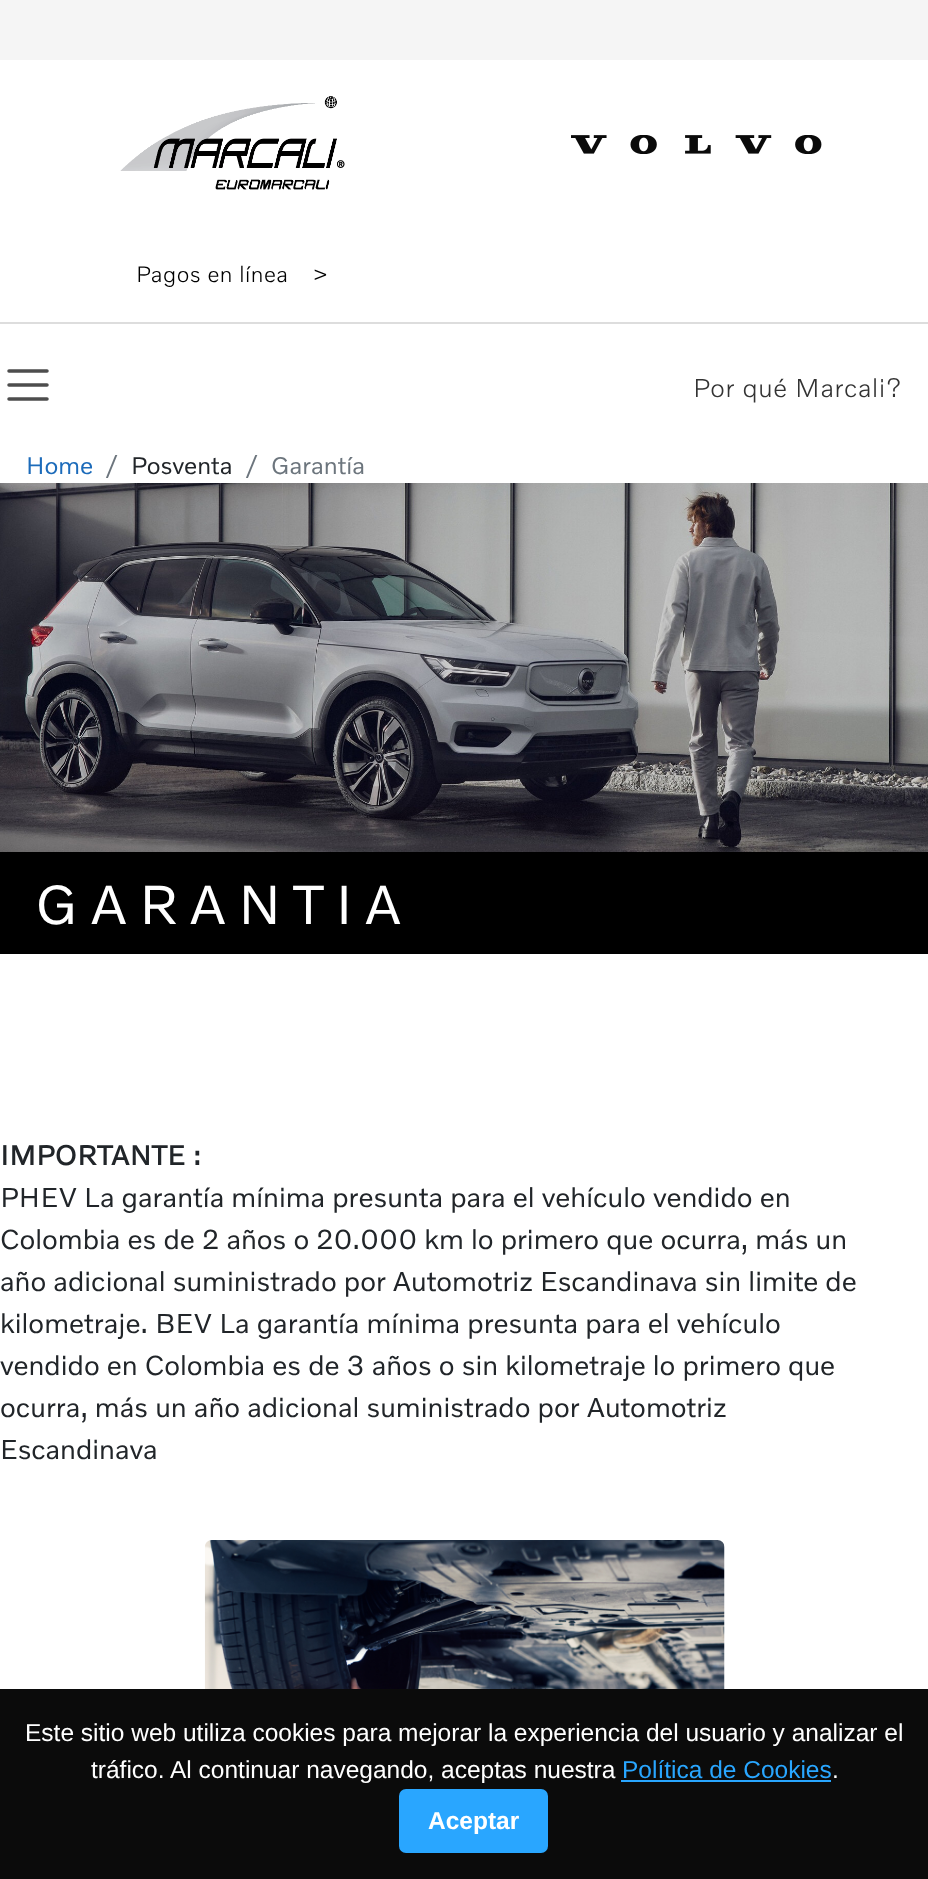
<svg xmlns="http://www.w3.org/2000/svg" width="928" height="1879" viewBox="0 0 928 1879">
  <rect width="100%" height="100%" fill="#ffffff"/>
  <rect x="0" y="0" width="928" height="60" fill="#f5f5f5"/>
  <rect x="0" y="322" width="928" height="2" fill="#dddddd"/>
  <image x="120" y="96" width="225" height="94" href="img1.png"/>
  <image x="571" y="135" width="251" height="19" href="img2.png"/>
  <text x="136" y="282" font-family="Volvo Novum" font-size="22.75" font-weight="300" letter-spacing="0.5" fill="#000000">Pagos en línea</text>
  <text x="313" y="282" font-family="Volvo Novum" font-size="22.75" font-weight="300" letter-spacing="0.5" fill="#000000">&gt;</text>
  <path d="M9 371H47M9 385H47M9 399H47" fill="none" stroke="#4d4d4d" stroke-width="3.5" stroke-linecap="round"/>
  <text x="693" y="397" font-family="Volvo Novum" font-size="26.25" font-weight="300" letter-spacing="0.7" fill="#333333">Por qué Marcali?</text>
  <text x="26" y="474" font-family="Volvo Novum" font-size="24.5" fill="#1c6bba">Home</text>
  <text x="107" y="474" font-family="Volvo Novum" font-size="24.5" fill="#6c757d">/</text>
  <text x="131" y="474" font-family="Volvo Novum" font-size="24.5" fill="#212529">Posventa</text>
  <text x="247" y="474" font-family="Volvo Novum" font-size="24.5" fill="#6c757d">/</text>
  <text x="271" y="474" font-family="Volvo Novum" font-size="24.5" fill="#6c757d">Garantía</text>
  <image x="0" y="483" width="928" height="369" href="img3.png"/>
  <rect x="0" y="852" width="928" height="102" fill="#000000"/>
  <text x="35" y="924" font-family="Volvo Novum" font-size="56" letter-spacing="11.25" fill="#ffffff">GARANTIA</text>
  <text x="0" y="1165" font-family="Volvo Novum" font-size="28" font-weight="bold" fill="#212529">IMPORTANTE :</text>
  <text x="0" y="1207" font-family="Volvo Novum" font-size="28" fill="#212529">PHEV La garantía mínima presunta para el vehículo vendido en</text>
  <text x="0" y="1249" font-family="Volvo Novum" font-size="28" fill="#212529">Colombia es de 2 años o 20.000 km lo primero que ocurra, más un</text>
  <text x="0" y="1291" font-family="Volvo Novum" font-size="28" fill="#212529">año adicional suministrado por Automotriz Escandinava sin limite de</text>
  <text x="0" y="1333" font-family="Volvo Novum" font-size="28" fill="#212529">kilometraje. BEV La garantía mínima presunta para el vehículo</text>
  <text x="0" y="1375" font-family="Volvo Novum" font-size="28" fill="#212529">vendido en Colombia es de 3 años o sin kilometraje lo primero que</text>
  <text x="0" y="1417" font-family="Volvo Novum" font-size="28" fill="#212529">ocurra, más un año adicional suministrado por Automotriz</text>
  <text x="0" y="1459" font-family="Volvo Novum" font-size="28" fill="#212529">Escandinava</text>
  <image x="204" y="1540" width="521" height="149" href="img4.png"/>
  <rect x="0" y="1689" width="928" height="190" fill="#0b0b0b"/>
  <text x="25" y="1741" font-family="Liberation Sans" font-size="24.5" fill="#ffffff">Este sitio web utiliza cookies para mejorar la experiencia del usuario y analizar el</text>
  <text x="91" y="1778" font-family="Liberation Sans" font-size="24.5" fill="#ffffff">tráfico.</text>
  <text x="170" y="1778" font-family="Liberation Sans" font-size="24.5" fill="#ffffff">Al continuar navegando, aceptas nuestra</text>
  <text x="622" y="1778" font-family="Liberation Sans" font-size="24.5" fill="#29a6ff">Política de Cookies</text>
  <rect x="621" y="1780" width="210" height="2" fill="#29a6ff"/>
  <text x="832" y="1778" font-family="Liberation Sans" font-size="24.5" fill="#ffffff">.</text>
  <rect x="399" y="1789" width="149" height="64" rx="7" fill="#29a6ff"/>
  <text x="428" y="1829" font-family="Liberation Sans" font-size="24.5" font-weight="bold" fill="#ffffff">Aceptar</text>
</svg>
